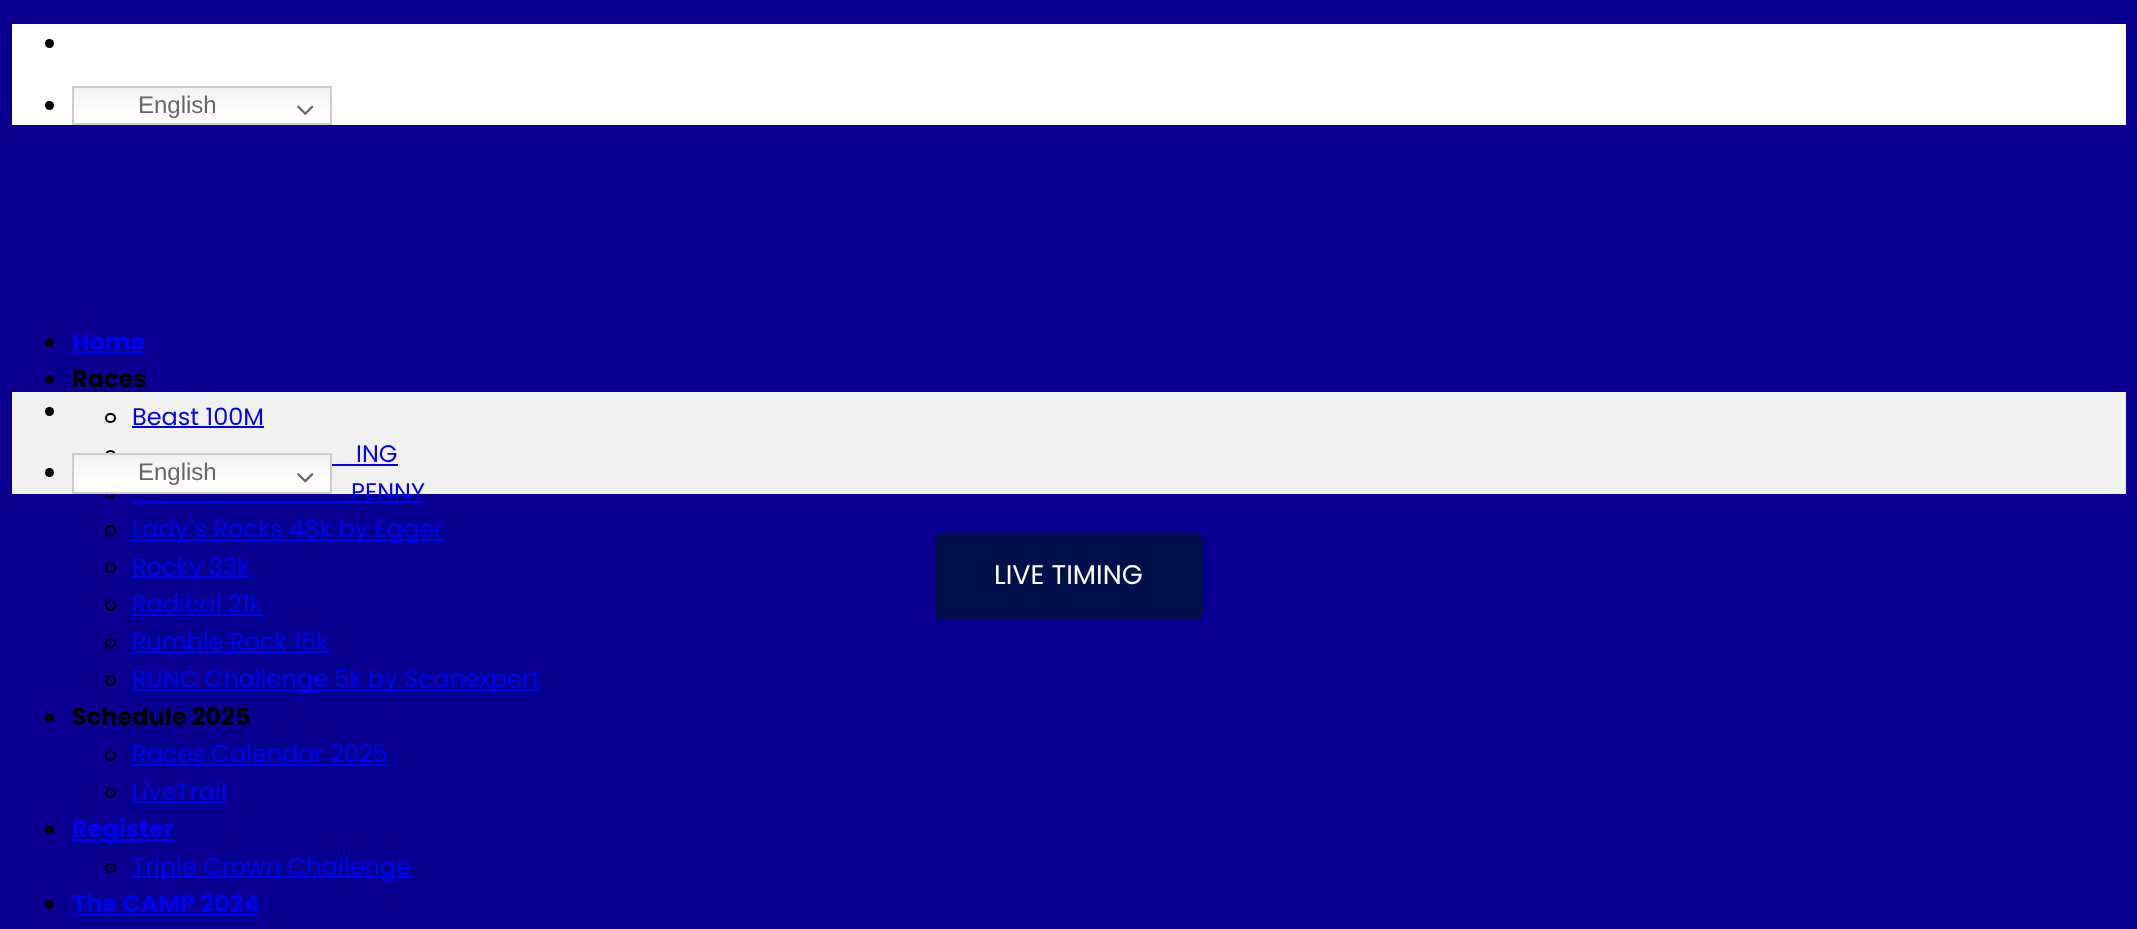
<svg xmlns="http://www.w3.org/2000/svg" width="2137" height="929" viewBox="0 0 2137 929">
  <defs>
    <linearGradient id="g1" gradientUnits="userSpaceOnUse" x1="202" y1="85" x2="202" y2="125"><stop offset="0" stop-color="#efefef"/><stop offset="0.7" stop-color="#ffffff"/></linearGradient>
    <linearGradient id="g2" gradientUnits="userSpaceOnUse" x1="202" y1="453" x2="202" y2="494"><stop offset="0" stop-color="#efefef"/><stop offset="0.7" stop-color="#ffffff"/></linearGradient>
  </defs>
  <rect width="100%" height="100%" fill="#090091"/>
  <rect x="12" y="24" width="2114" height="101" fill="#ffffff"/>
  <circle cx="49.5" cy="43.5" r="4.5" fill="#020202"/>
  <circle cx="49.5" cy="105.5" r="4.5" fill="#020202"/>
  <rect x="74" y="88" width="256" height="21" fill="url(#g1)"/>
  <rect x="73" y="87" width="258" height="37" fill="none" stroke="#cccccc" stroke-width="2"/>
  <text x="138" y="113" font-family="Liberation Sans" font-size="24" fill="#666666">English</text>
  <image x="297" y="105" width="17" height="10" href="img1.png"/>
  <circle cx="49.5" cy="342.5" r="4.5" fill="#020202"/>
  <text x="72" y="350" font-family="Poppins" font-size="24" font-weight="bold" fill="#0000ee">Home</text>
  <rect x="72" y="351" width="74" height="2" fill="#0000ee"/>
  <circle cx="49.5" cy="379.5" r="4.5" fill="#020202"/>
  <text x="72" y="387" font-family="Poppins" font-size="24" font-weight="bold" fill="#020202">Races</text>
  <rect x="12" y="392" width="2114" height="102" fill="#f1f1f1"/>
  <rect x="106" y="414" width="9" height="8" rx="4" fill="none" stroke="#020202" stroke-width="2"/>
  <text x="132" y="425" font-family="Poppins" font-size="24" fill="#0000ee">Beast 100M</text>
  <rect x="132" y="426" width="132" height="2" fill="#0000ee"/>
  <circle cx="110.5" cy="455.5" r="4.5" fill="none" stroke="#020202" stroke-width="2"/>
  <text x="356" y="462" font-family="Poppins" font-size="24" fill="#0000ee">ING</text>
  <rect x="332" y="464" width="66" height="2" fill="#0000ee"/>
  <rect x="106" y="489" width="9" height="8" rx="4" fill="none" stroke="#020202" stroke-width="2"/>
  <text x="351" y="500" font-family="Poppins" font-size="24" fill="#0000ee">PENNY</text>
  <rect x="132" y="501" width="293" height="2" fill="#0000ee"/>
  <circle cx="110.5" cy="530.5" r="4.5" fill="none" stroke="#020202" stroke-width="2"/>
  <rect x="132" y="539" width="311" height="2" fill="#0000ee"/>
  <text x="132" y="537" font-family="Poppins" font-size="24" fill="#0000ee">Lady`s Rocks 48k by Egger</text>
  <rect x="106" y="564" width="9" height="8" rx="4" fill="none" stroke="#020202" stroke-width="2"/>
  <rect x="132" y="576" width="117" height="2" fill="#0000ee"/>
  <text x="132" y="575" font-family="Poppins" font-size="24" fill="#0000ee">Rocky 33k</text>
  <circle cx="110.5" cy="605.5" r="4.5" fill="none" stroke="#020202" stroke-width="2"/>
  <text x="132" y="612" font-family="Poppins" font-size="24" fill="#0000ee">Radical 21k</text>
  <rect x="132" y="614" width="131" height="2" fill="#0000ee"/>
  <rect x="106" y="639" width="9" height="8" rx="4" fill="none" stroke="#020202" stroke-width="2"/>
  <text x="132" y="650" font-family="Poppins" font-size="24" fill="#0000ee">Rumble Rock 15k</text>
  <rect x="132" y="651" width="197" height="2" fill="#0000ee"/>
  <circle cx="110.5" cy="680.5" r="4.5" fill="none" stroke="#020202" stroke-width="2"/>
  <rect x="132" y="689" width="408" height="2" fill="#0000ee"/>
  <text x="132" y="687" font-family="Poppins" font-size="24" fill="#0000ee">RUNC Challenge 5k by Scanexpert</text>
  <circle cx="49.5" cy="717.5" r="4.5" fill="#020202"/>
  <text x="72" y="725" font-family="Poppins" font-size="24" font-weight="bold" fill="#020202">Schedule 2025</text>
  <circle cx="110.5" cy="755.5" r="4.5" fill="none" stroke="#020202" stroke-width="2"/>
  <text x="132" y="762" font-family="Poppins" font-size="24" fill="#0000ee">Races Calendar 2025</text>
  <rect x="132" y="764" width="255" height="2" fill="#0000ee"/>
  <rect x="106" y="789" width="9" height="8" rx="4" fill="none" stroke="#020202" stroke-width="2"/>
  <text x="132" y="800" font-family="Poppins" font-size="24" fill="#0000ee">LiveTrail</text>
  <rect x="132" y="801" width="95" height="2" fill="#0000ee"/>
  <circle cx="49.5" cy="829.5" r="4.5" fill="#020202"/>
  <rect x="72" y="839" width="102" height="2" fill="#0000ee"/>
  <text x="72" y="837" font-family="Poppins" font-size="24" font-weight="bold" fill="#0000ee">Register</text>
  <rect x="106" y="864" width="9" height="8" rx="4" fill="none" stroke="#020202" stroke-width="2"/>
  <rect x="132" y="876" width="279" height="2" fill="#0000ee"/>
  <text x="132" y="875" font-family="Poppins" font-size="24" fill="#0000ee">Triple Crown Challenge</text>
  <circle cx="49.5" cy="904.5" r="4.5" fill="#020202"/>
  <text x="72" y="912" font-family="Poppins" font-size="24" font-weight="bold" fill="#0000ee">The CAMP 2024</text>
  <rect x="72" y="914" width="188" height="2" fill="#0000ee"/>
  <circle cx="49.5" cy="411.5" r="4.5" fill="#020202"/>
  <circle cx="49.5" cy="472.5" r="4.5" fill="#020202"/>
  <rect x="74" y="455" width="256" height="37" fill="url(#g2)"/>
  <rect x="73" y="454" width="258" height="39" fill="none" stroke="#cccccc" stroke-width="2"/>
  <text x="138" y="480" font-family="Liberation Sans" font-size="24" fill="#666666">English</text>
  <image x="297" y="473" width="17" height="10" href="img2.png"/>
  <rect x="935" y="533" width="268" height="87" rx="8" fill="#02114b"/>
  <text x="994" y="584" font-family="Poppins" font-size="27" fill="#ffffff">LIVE TIMING</text>
</svg>
